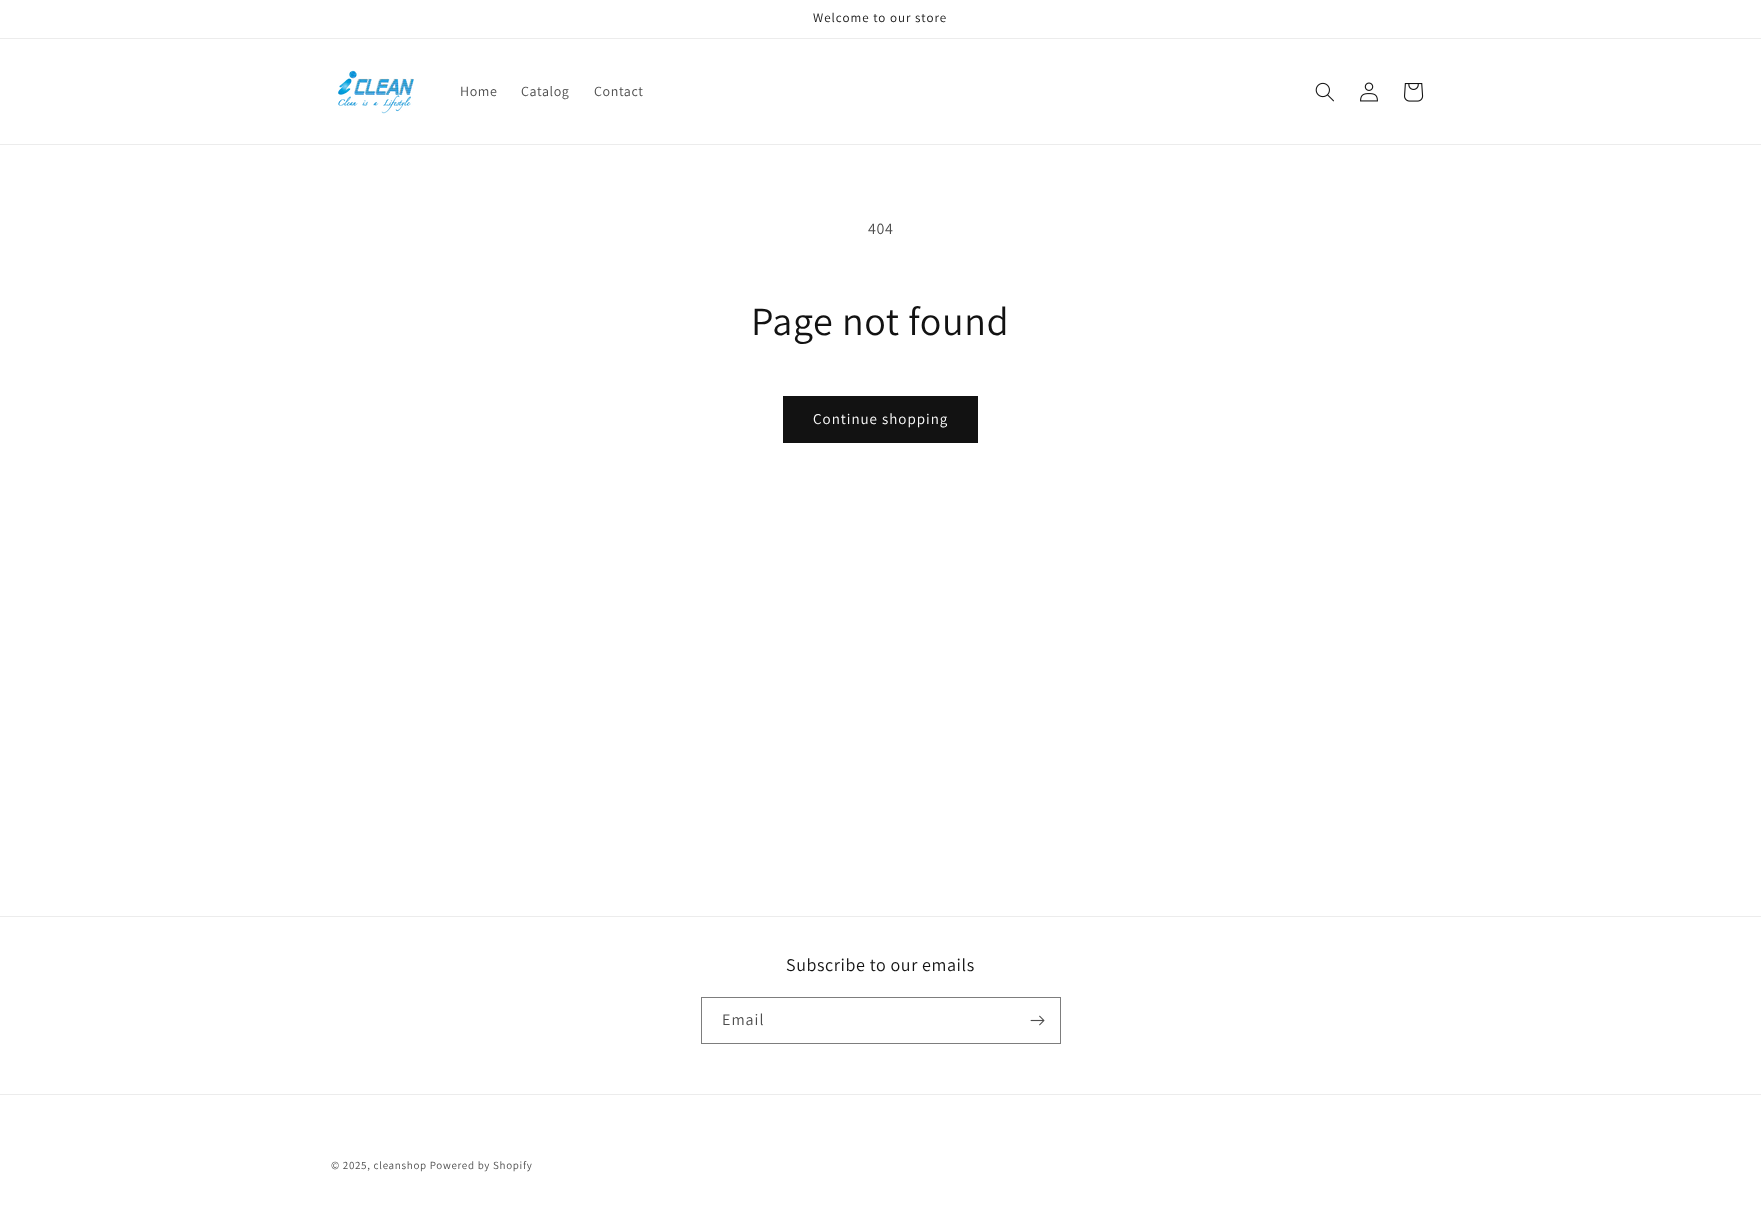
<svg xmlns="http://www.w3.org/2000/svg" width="1761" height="1211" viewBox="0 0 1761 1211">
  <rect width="100%" height="100%" fill="#ffffff"/>
  <rect x="0" y="38" width="1761" height="1" fill="#ececec"/>
  <text x="813" y="22" font-family="Assistant" font-size="13" letter-spacing="1" fill="#121212">Welcome to our store</text>
  <rect x="0" y="144" width="1761" height="1" fill="#ececec"/>
  <image x="338" y="70" width="76" height="44" href="img1.png"/>
  <text x="460" y="96" font-family="Assistant" font-size="14" letter-spacing="0.6" fill="#4d4d4d">Home</text>
  <text x="521" y="96" font-family="Assistant" font-size="14" letter-spacing="0.6" fill="#4d4d4d">Catalog</text>
  <text x="594" y="96" font-family="Assistant" font-size="14" letter-spacing="0.6" fill="#4d4d4d">Contact</text>
  <image x="1315" y="82" width="19" height="20" href="img2.png"/>
  <image x="1360" y="82" width="18" height="20" href="img3.png"/>
  <image x="1404" y="83" width="20" height="19" href="img4.png"/>
  <text x="868" y="234" font-family="Assistant" font-size="16" letter-spacing="0.6" fill="#4d4d4d">404</text>
  <text x="751" y="335" font-family="Assistant" font-size="40" letter-spacing="0.6" fill="#121212">Page not found</text>
  <rect x="783" y="396" width="195" height="47" fill="#121212"/>
  <text x="813" y="424" font-family="Assistant" font-size="15" letter-spacing="1" fill="#ffffff">Continue shopping</text>
  <rect x="0" y="916" width="1761" height="1" fill="#ececec"/>
  <text x="786" y="971" font-family="Assistant" font-size="18" letter-spacing="0.6" fill="#121212">Subscribe to our emails</text>
  <rect x="701.5" y="997.5" width="359" height="46" fill="none" stroke="#7d7d7d"/>
  <text x="722" y="1025" font-family="Assistant" font-size="16" letter-spacing="1" fill="#4d4d4d">Email</text>
  <image x="1030" y="1015" width="15" height="11" href="img5.png"/>
  <rect x="0" y="1094" width="1761" height="1" fill="#ececec"/>
  <text x="331" y="1169" font-family="Assistant" font-size="11" letter-spacing="0.7" fill="#4d4d4d">© 2025, cleanshop Powered by Shopify</text>
</svg>
